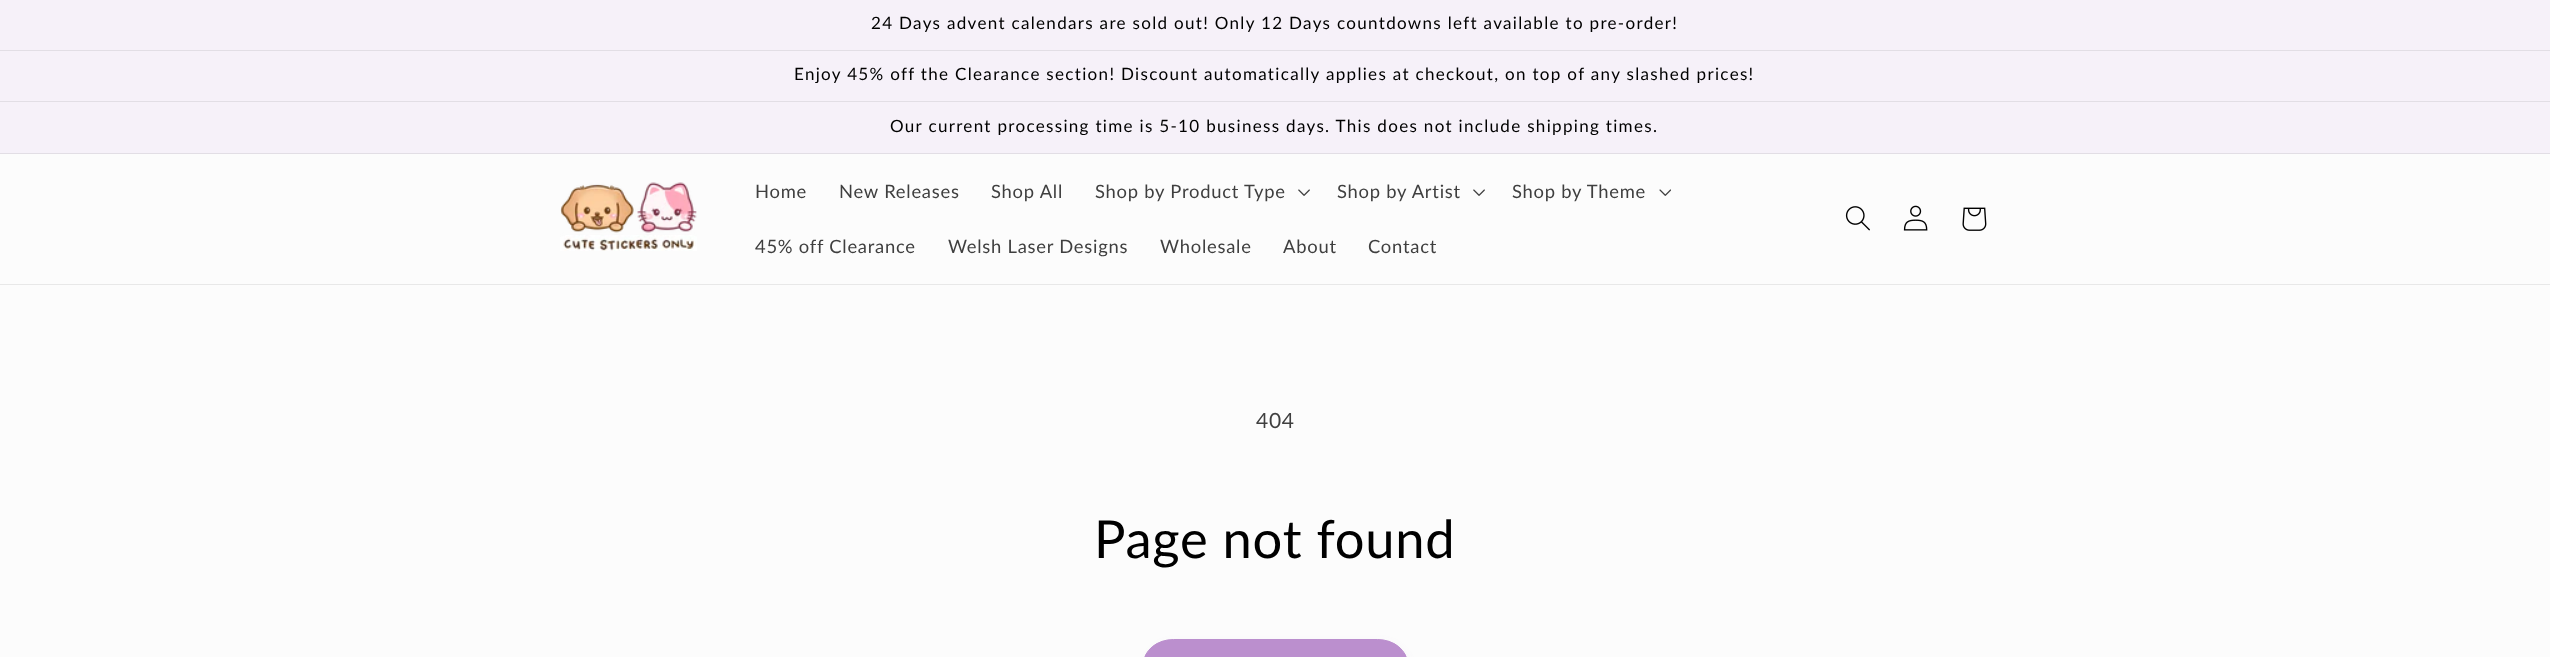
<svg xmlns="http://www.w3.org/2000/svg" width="2550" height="657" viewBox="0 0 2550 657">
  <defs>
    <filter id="blur1" x="-50%" y="-200%" width="200%" height="500%"><feGaussianBlur stdDeviation="3"/></filter>
  </defs>
  <rect width="100%" height="100%" fill="#fcfcfc"/>
  <rect x="0" y="0" width="2550" height="50" fill="#f6f1f9"/>
  <rect x="0" y="50" width="2550" height="1" fill="#e2dee5"/>
  <text x="871" y="29" font-family="Lato" font-size="17.05" letter-spacing="1.31" fill="#000000">24 Days advent calendars are sold out! Only 12 Days countdowns left available to pre-order!</text>
  <rect x="0" y="51" width="2550" height="102" fill="#f6f1f9"/>
  <rect x="0" y="101" width="2550" height="1" fill="#e2dee5"/>
  <text x="794" y="80" font-family="Lato" font-size="17.05" letter-spacing="1.31" fill="#000000">Enjoy 45% off the Clearance section! Discount automatically applies at checkout, on top of any slashed prices!</text>
  <rect x="0" y="153" width="2550" height="1" fill="#e2dee5"/>
  <text x="890" y="132" font-family="Lato" font-size="17.05" letter-spacing="1.31" fill="#000000">Our current processing time is 5-10 business days. This does not include shipping times.</text>
  <rect x="0" y="284" width="2550" height="1" fill="#e8e8e8"/>
  <image x="560" y="182" width="137" height="69" href="img1.png"/>
  <text x="755" y="198" font-family="Lato" font-size="18.4" letter-spacing="0.75" fill="#3f3f3f">Home</text>
  <text x="839" y="198" font-family="Lato" font-size="18.4" letter-spacing="0.75" fill="#3f3f3f">New Releases</text>
  <text x="991" y="198" font-family="Lato" font-size="18.4" letter-spacing="0.75" fill="#3f3f3f">Shop All</text>
  <text x="1095" y="198" font-family="Lato" font-size="18.4" letter-spacing="0.75" fill="#3f3f3f">Shop by Product Type</text>
  <image x="1298" y="189" width="12" height="7" href="img2.png"/>
  <text x="1337" y="198" font-family="Lato" font-size="18.4" letter-spacing="0.75" fill="#3f3f3f">Shop by Artist</text>
  <image x="1473" y="189" width="12" height="7" href="img2.png"/>
  <text x="1512" y="198" font-family="Lato" font-size="18.4" letter-spacing="0.75" fill="#3f3f3f">Shop by Theme</text>
  <image x="1659" y="189" width="12" height="7" href="img3.png"/>
  <text x="755" y="253" font-family="Lato" font-size="18.4" letter-spacing="0.75" fill="#3f3f3f">45% off Clearance</text>
  <text x="948" y="253" font-family="Lato" font-size="18.4" letter-spacing="0.75" fill="#3f3f3f">Welsh Laser Designs</text>
  <text x="1160" y="253" font-family="Lato" font-size="18.4" letter-spacing="0.75" fill="#3f3f3f">Wholesale</text>
  <text x="1283" y="253" font-family="Lato" font-size="18.4" letter-spacing="0.75" fill="#3f3f3f">About</text>
  <text x="1368" y="253" font-family="Lato" font-size="18.4" letter-spacing="0.75" fill="#3f3f3f">Contact</text>
  <image x="1845" y="206" width="25" height="25" href="img4.png"/>
  <image x="1903" y="205" width="25" height="26" href="img5.png"/>
  <image x="1962" y="207" width="25" height="24" href="img6.png"/>
  <text x="1256" y="428" font-family="Lato" font-size="21" letter-spacing="0.75" fill="#3f3f3f">404</text>
  <text x="1094" y="558" font-family="Lato" font-size="52.5" letter-spacing="0.75" fill="#000000">Page not found</text>
  <rect x="1145" y="641" width="265" height="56" rx="31" fill="#bb8fce" fill-opacity="0.1" filter="url(#blur1)"/>
  <rect x="1143.5" y="639.5" width="264" height="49" rx="30" fill="#bb8fce" stroke="#bb8fce"/>
</svg>
